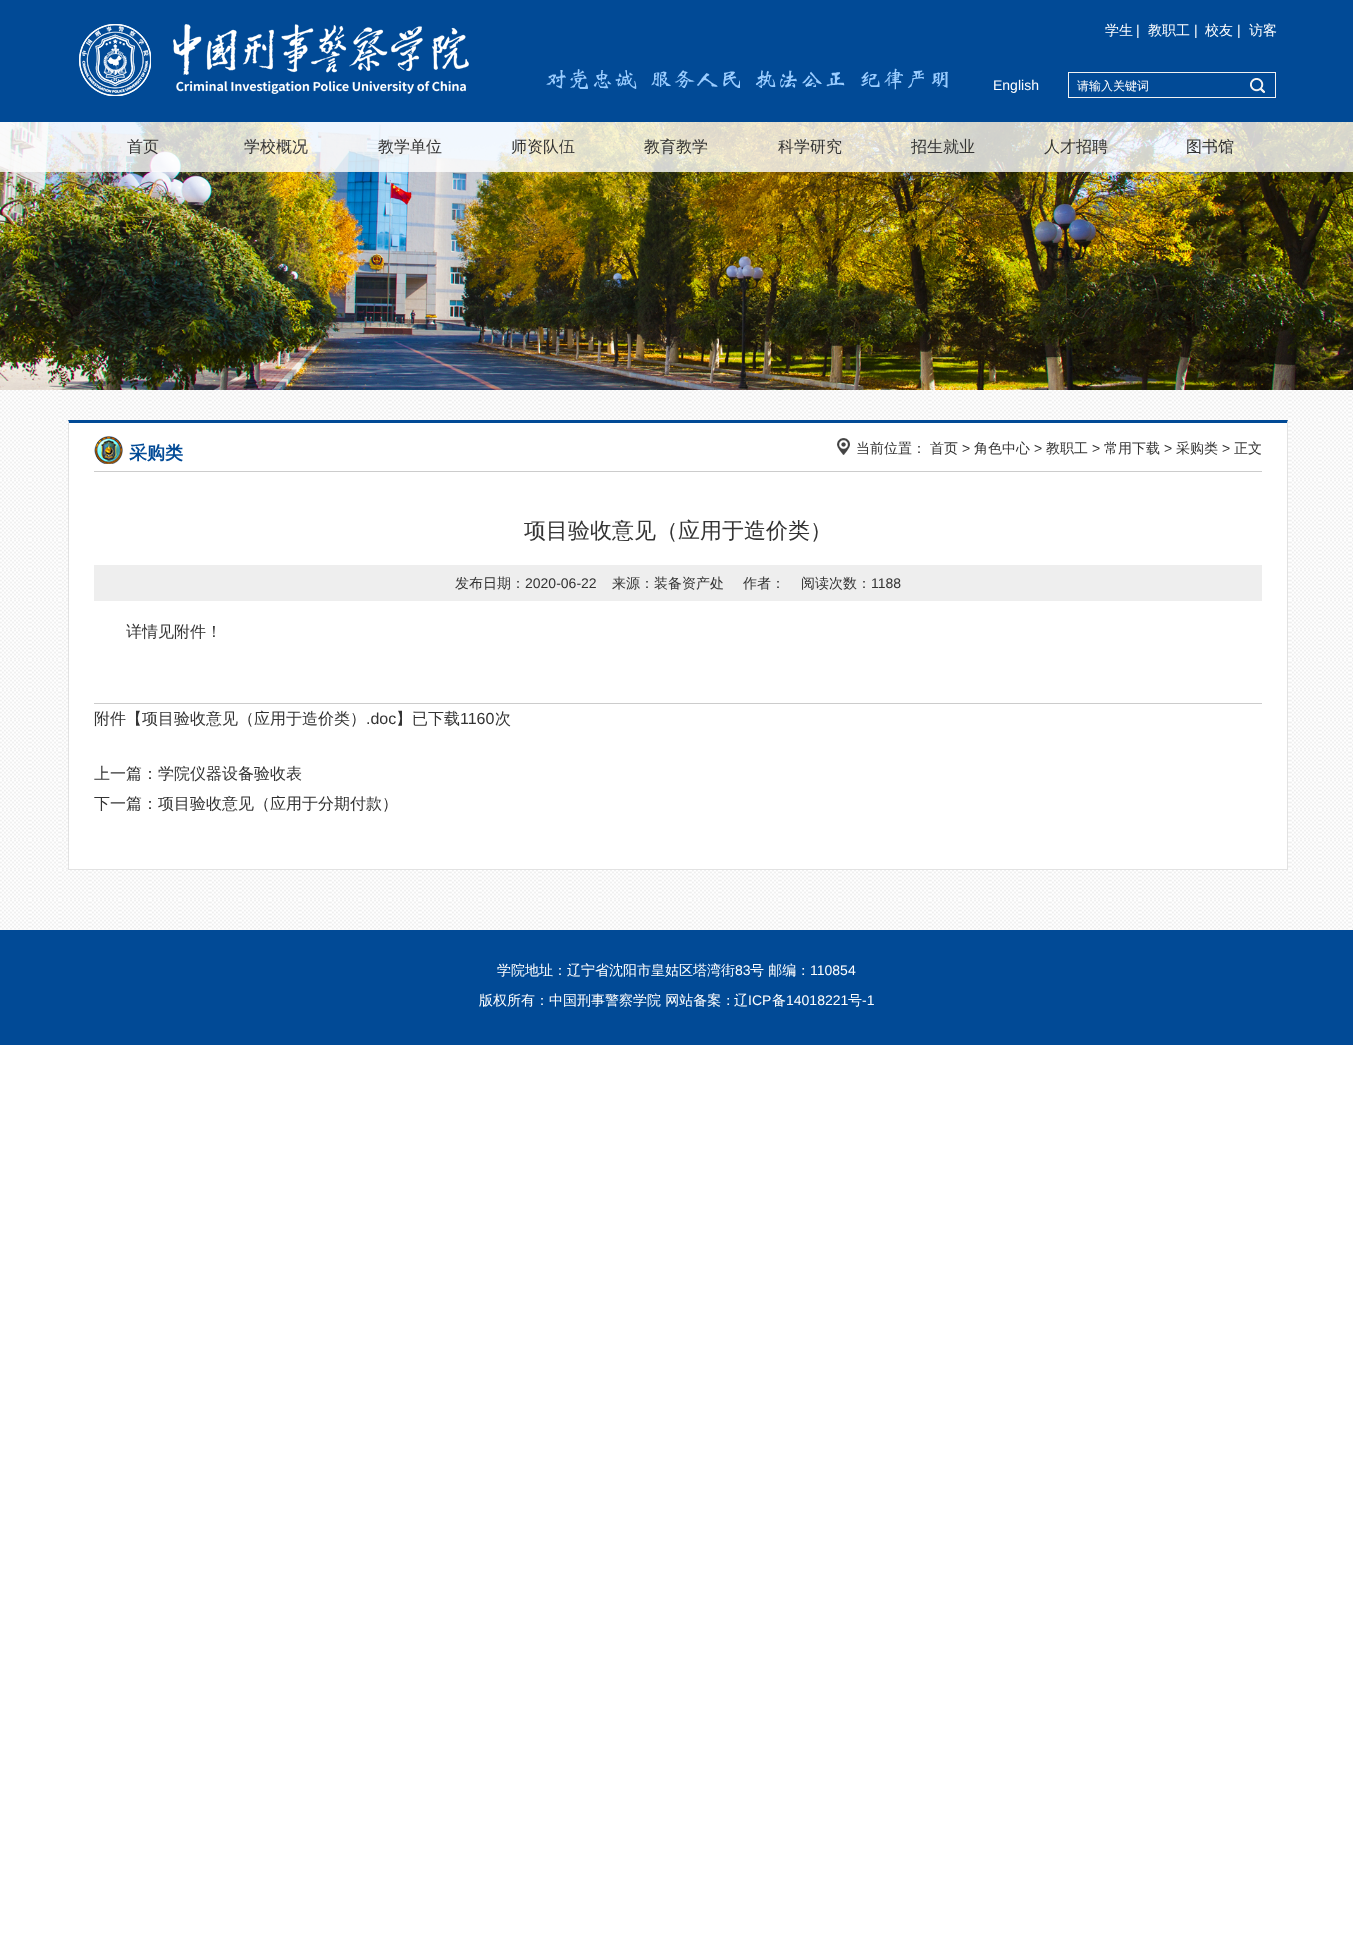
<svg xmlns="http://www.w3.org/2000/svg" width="1353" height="1947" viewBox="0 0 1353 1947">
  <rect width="100%" height="100%" fill="#ffffff"/>
  <rect x="0" y="0" width="1353" height="122" fill="#014a96"/>
  <image x="79" y="24" width="390" height="72" href="img1.png"/>
  <image x="546" y="68" width="402" height="22" href="img2.png"/>
  <text x="1105" y="35" font-family="WenQuanYi Zen Hei" font-size="14" font-weight="500" fill="#ffffff">学生</text>
  <text x="1136" y="35" font-family="Liberation Sans" font-size="14" fill="#ffffff">|</text>
  <text x="1148" y="35" font-family="WenQuanYi Zen Hei" font-size="14" font-weight="500" fill="#ffffff">教职工</text>
  <text x="1194" y="35" font-family="Liberation Sans" font-size="14" fill="#ffffff">|</text>
  <text x="1205" y="35" font-family="WenQuanYi Zen Hei" font-size="14" font-weight="500" fill="#ffffff">校友</text>
  <text x="1237" y="35" font-family="Liberation Sans" font-size="14" fill="#ffffff">|</text>
  <text x="1249" y="35" font-family="WenQuanYi Zen Hei" font-size="14" font-weight="500" fill="#ffffff">访客</text>
  <text x="993" y="90" font-family="Liberation Sans" font-size="14" fill="#ffffff">English</text>
  <image x="1068" y="72" width="208" height="26" href="img3.png"/>
  <text x="1077" y="90" font-family="WenQuanYi Zen Hei" font-size="12" font-weight="500" fill="#ffffff">请输入关键词</text>
  <image x="0" y="122" width="1353" height="268" href="img4.png"/>
  <rect x="0" y="122" width="1353" height="50" fill="#ffffff" fill-opacity="0.8"/>
  <text x="127" y="152" font-family="WenQuanYi Zen Hei" font-size="16" font-weight="500" fill="#333333">首页</text>
  <text x="244" y="152" font-family="WenQuanYi Zen Hei" font-size="16" font-weight="500" fill="#333333">学校概况</text>
  <text x="378" y="152" font-family="WenQuanYi Zen Hei" font-size="16" font-weight="500" fill="#333333">教学单位</text>
  <text x="511" y="152" font-family="WenQuanYi Zen Hei" font-size="16" font-weight="500" fill="#333333">师资队伍</text>
  <text x="644" y="152" font-family="WenQuanYi Zen Hei" font-size="16" font-weight="500" fill="#333333">教育教学</text>
  <text x="778" y="152" font-family="WenQuanYi Zen Hei" font-size="16" font-weight="500" fill="#333333">科学研究</text>
  <text x="911" y="152" font-family="WenQuanYi Zen Hei" font-size="16" font-weight="500" fill="#333333">招生就业</text>
  <text x="1044" y="152" font-family="WenQuanYi Zen Hei" font-size="16" font-weight="500" fill="#333333">人才招聘</text>
  <text x="1186" y="152" font-family="WenQuanYi Zen Hei" font-size="16" font-weight="500" fill="#333333">图书馆</text>
  <image x="0" y="390" width="1353" height="540" href="img5.png"/>
  <rect x="69" y="423" width="1218" height="446" fill="#ffffff"/>
  <path d="M68 420H1288L1287 423H69Z" fill="#014a96"/>
  <path d="M1288 420V870L1287 869V423Z" fill="#e2e2e2"/>
  <rect x="68" y="869" width="1220" height="1" fill="#e2e2e2"/>
  <path d="M68 870V420L69 423V869Z" fill="#e2e2e2"/>
  <rect x="94" y="471" width="1168" height="1" fill="#cccccc"/>
  <image x="94" y="436" width="29" height="28" href="img6.png"/>
  <text x="129" y="459" font-family="WenQuanYi Zen Hei" font-size="18" font-weight="bold" fill="#014a96">采购类</text>
  <image x="837" y="438" width="13" height="17" href="img7.png"/>
  <text x="856" y="453" font-family="WenQuanYi Zen Hei" font-size="14" font-weight="500" fill="#333333">当前位置：</text>
  <text x="930" y="453" font-family="WenQuanYi Zen Hei" font-size="14" font-weight="500" fill="#333333">首页</text>
  <text x="962" y="453" font-family="Liberation Sans" font-size="14" fill="#333333">&gt;</text>
  <text x="974" y="453" font-family="WenQuanYi Zen Hei" font-size="14" font-weight="500" fill="#333333">角色中心</text>
  <text x="1034" y="453" font-family="Liberation Sans" font-size="14" fill="#333333">&gt;</text>
  <text x="1046" y="453" font-family="WenQuanYi Zen Hei" font-size="14" font-weight="500" fill="#333333">教职工</text>
  <text x="1092" y="453" font-family="Liberation Sans" font-size="14" fill="#333333">&gt;</text>
  <text x="1104" y="453" font-family="WenQuanYi Zen Hei" font-size="14" font-weight="500" fill="#333333">常用下载</text>
  <text x="1164" y="453" font-family="Liberation Sans" font-size="14" fill="#333333">&gt;</text>
  <text x="1176" y="453" font-family="WenQuanYi Zen Hei" font-size="14" font-weight="500" fill="#333333">采购类</text>
  <text x="1222" y="453" font-family="Liberation Sans" font-size="14" fill="#333333">&gt;</text>
  <text x="1234" y="453" font-family="WenQuanYi Zen Hei" font-size="14" font-weight="500" fill="#333333">正文</text>
  <text x="524" y="538" font-family="WenQuanYi Zen Hei" font-size="22" font-weight="500" fill="#333333">项目验收意见（应用于造价类）</text>
  <rect x="94" y="565" width="1168" height="36" fill="#eeeeee"/>
  <text x="455" y="588" font-family="WenQuanYi Zen Hei" font-size="14" font-weight="500" fill="#333333">发布日期：</text>
  <text x="525" y="588" font-family="Liberation Sans" font-size="14" fill="#333333">2020-06-22</text>
  <text x="612" y="588" font-family="WenQuanYi Zen Hei" font-size="14" font-weight="500" fill="#333333">来源：装备资产处</text>
  <text x="743" y="588" font-family="WenQuanYi Zen Hei" font-size="14" font-weight="500" fill="#333333">作者：</text>
  <text x="801" y="588" font-family="WenQuanYi Zen Hei" font-size="14" font-weight="500" fill="#333333">阅读次数：</text>
  <text x="871" y="588" font-family="Liberation Sans" font-size="14" fill="#333333">1188</text>
  <rect x="94" y="703" width="1168" height="1" fill="#cccccc"/>
  <text x="126" y="637" font-family="WenQuanYi Zen Hei" font-size="16" font-weight="500" fill="#333333">详情见附件！</text>
  <text x="94" y="724" font-family="WenQuanYi Zen Hei" font-size="16" font-weight="500" fill="#333333">附件【项目验收意见（应用于造价类）</text>
  <text x="366" y="724" font-family="Liberation Sans" font-size="16" fill="#333333">.doc</text>
  <text x="396" y="724" font-family="WenQuanYi Zen Hei" font-size="16" font-weight="500" fill="#333333">】已下载</text>
  <text x="460" y="724" font-family="Liberation Sans" font-size="16" fill="#333333">1160</text>
  <text x="495" y="724" font-family="WenQuanYi Zen Hei" font-size="16" font-weight="500" fill="#333333">次</text>
  <text x="94" y="779" font-family="WenQuanYi Zen Hei" font-size="16" font-weight="500" fill="#333333">上一篇：学院仪器设备验收表</text>
  <text x="94" y="809" font-family="WenQuanYi Zen Hei" font-size="16" font-weight="500" fill="#333333">下一篇：项目验收意见（应用于分期付款）</text>
  <rect x="0" y="930" width="1353" height="115" fill="#014a96"/>
  <text x="497" y="975" font-family="WenQuanYi Zen Hei" font-size="14" font-weight="500" fill="#ffffff">学院地址：辽宁省沈阳市皇姑区塔湾街</text>
  <text x="735" y="975" font-family="Liberation Sans" font-size="14" fill="#ffffff">83</text>
  <text x="750" y="975" font-family="WenQuanYi Zen Hei" font-size="14" font-weight="500" fill="#ffffff">号 邮编：</text>
  <text x="810" y="975" font-family="Liberation Sans" font-size="14" fill="#ffffff">110854</text>
  <text x="479" y="1005" font-family="WenQuanYi Zen Hei" font-size="14" font-weight="500" fill="#ffffff">版权所有：中国刑事警察学院 网站备案：</text>
  <text x="734" y="1005" font-family="WenQuanYi Zen Hei" font-size="14" font-weight="500" fill="#ffffff">辽</text>
  <text x="748" y="1005" font-family="Liberation Sans" font-size="14" fill="#ffffff">ICP</text>
  <text x="772" y="1005" font-family="WenQuanYi Zen Hei" font-size="14" font-weight="500" fill="#ffffff">备</text>
  <text x="786" y="1005" font-family="Liberation Sans" font-size="14" fill="#ffffff">14018221</text>
  <text x="848" y="1005" font-family="WenQuanYi Zen Hei" font-size="14" font-weight="500" fill="#ffffff">号</text>
  <text x="862" y="1005" font-family="Liberation Sans" font-size="14" fill="#ffffff">-1</text>
</svg>
